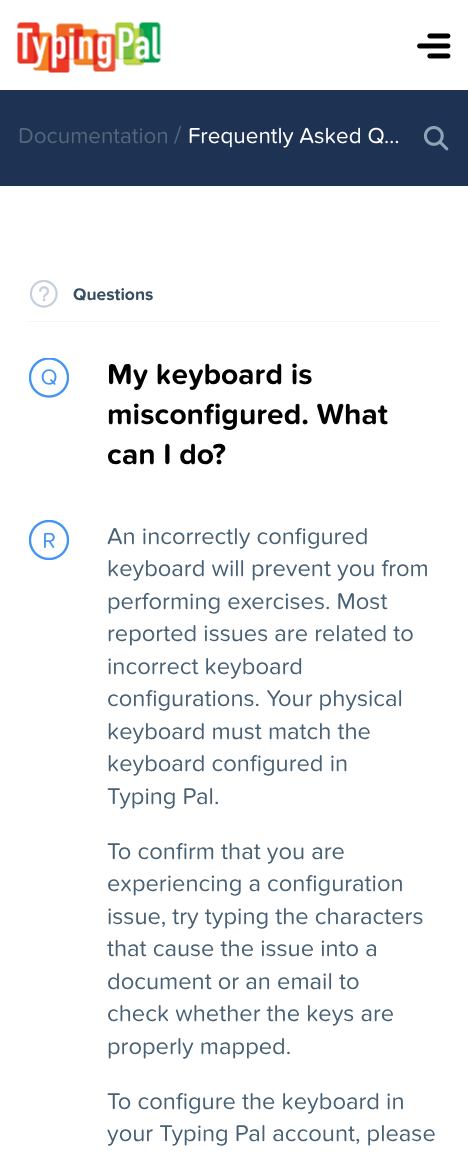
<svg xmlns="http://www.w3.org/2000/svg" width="468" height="1165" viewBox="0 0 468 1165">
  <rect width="100%" height="100%" fill="#ffffff"/>
  <path d="M0 90V91H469V1V90Z" fill="#1f3456"/>
  <image x="17" y="22" width="144" height="51" href="img1.png"/>
  <image x="417" y="33" width="34" height="26" href="img2.png"/>
  <rect x="0" y="91" width="468" height="95" fill="#1e3254"/>
  <text x="18" y="143" font-family="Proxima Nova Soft" font-size="22.5" fill="#55677a">Documentation</text>
  <text x="174" y="143" font-family="Proxima Nova Soft" font-size="25" fill="#55677a">/</text>
  <text x="188" y="143" font-family="Proxima Nova Soft" font-size="22.5" fill="#ffffff">Frequently Asked Q…</text>
  <image x="423" y="126" width="26" height="25" href="img3.png"/>
  <image x="29" y="279" width="29" height="29" href="img4.png"/>
  <text x="73" y="300" font-family="Proxima Nova Soft" font-size="17.5" font-weight="bold" fill="#384d60">Questions</text>
  <image x="29" y="358" width="40" height="40" href="img5.png"/>
  <rect x="29" y="321" width="411" height="1" fill="#f1f5f8"/>
  <text x="107" y="384" font-family="Proxima Nova Soft" font-size="30" font-weight="bold" fill="#000000">My keyboard is</text>
  <text x="107" y="424" font-family="Proxima Nova Soft" font-size="30" font-weight="bold" fill="#000000">misconfigured. What</text>
  <text x="107" y="464" font-family="Proxima Nova Soft" font-size="30" font-weight="bold" fill="#000000">can I do?</text>
  <image x="29" y="520" width="40" height="40" href="img6.png"/>
  <text x="107" y="544" font-family="Proxima Nova Soft" font-size="23.75" fill="#496174">An incorrectly configured</text>
  <text x="107" y="576" font-family="Proxima Nova Soft" font-size="23.75" fill="#496174">keyboard will prevent you from</text>
  <text x="107" y="609" font-family="Proxima Nova Soft" font-size="23.75" fill="#496174">performing exercises. Most</text>
  <text x="107" y="641" font-family="Proxima Nova Soft" font-size="23.75" fill="#496174">reported issues are related to</text>
  <text x="107" y="674" font-family="Proxima Nova Soft" font-size="23.75" fill="#496174">incorrect keyboard</text>
  <text x="107" y="706" font-family="Proxima Nova Soft" font-size="23.75" fill="#496174">configurations. Your physical</text>
  <text x="107" y="739" font-family="Proxima Nova Soft" font-size="23.75" fill="#496174">keyboard must match the</text>
  <text x="107" y="771" font-family="Proxima Nova Soft" font-size="23.75" fill="#496174">keyboard configured in</text>
  <text x="107" y="804" font-family="Proxima Nova Soft" font-size="23.75" fill="#496174">Typing Pal.</text>
  <text x="107" y="859" font-family="Proxima Nova Soft" font-size="23.75" fill="#496174">To confirm that you are</text>
  <text x="107" y="891" font-family="Proxima Nova Soft" font-size="23.75" fill="#496174">experiencing a configuration</text>
  <text x="107" y="924" font-family="Proxima Nova Soft" font-size="23.75" fill="#496174">issue, try typing the characters</text>
  <text x="107" y="956" font-family="Proxima Nova Soft" font-size="23.75" fill="#496174">that cause the issue into a</text>
  <text x="107" y="989" font-family="Proxima Nova Soft" font-size="23.75" fill="#496174">document or an email to</text>
  <text x="107" y="1021" font-family="Proxima Nova Soft" font-size="23.75" fill="#496174">check whether the keys are</text>
  <text x="107" y="1054" font-family="Proxima Nova Soft" font-size="23.75" fill="#496174">properly mapped.</text>
  <text x="107" y="1109" font-family="Proxima Nova Soft" font-size="23.75" fill="#496174">To configure the keyboard in</text>
  <text x="107" y="1141" font-family="Proxima Nova Soft" font-size="23.75" fill="#496174">your Typing Pal account, please</text>
</svg>
